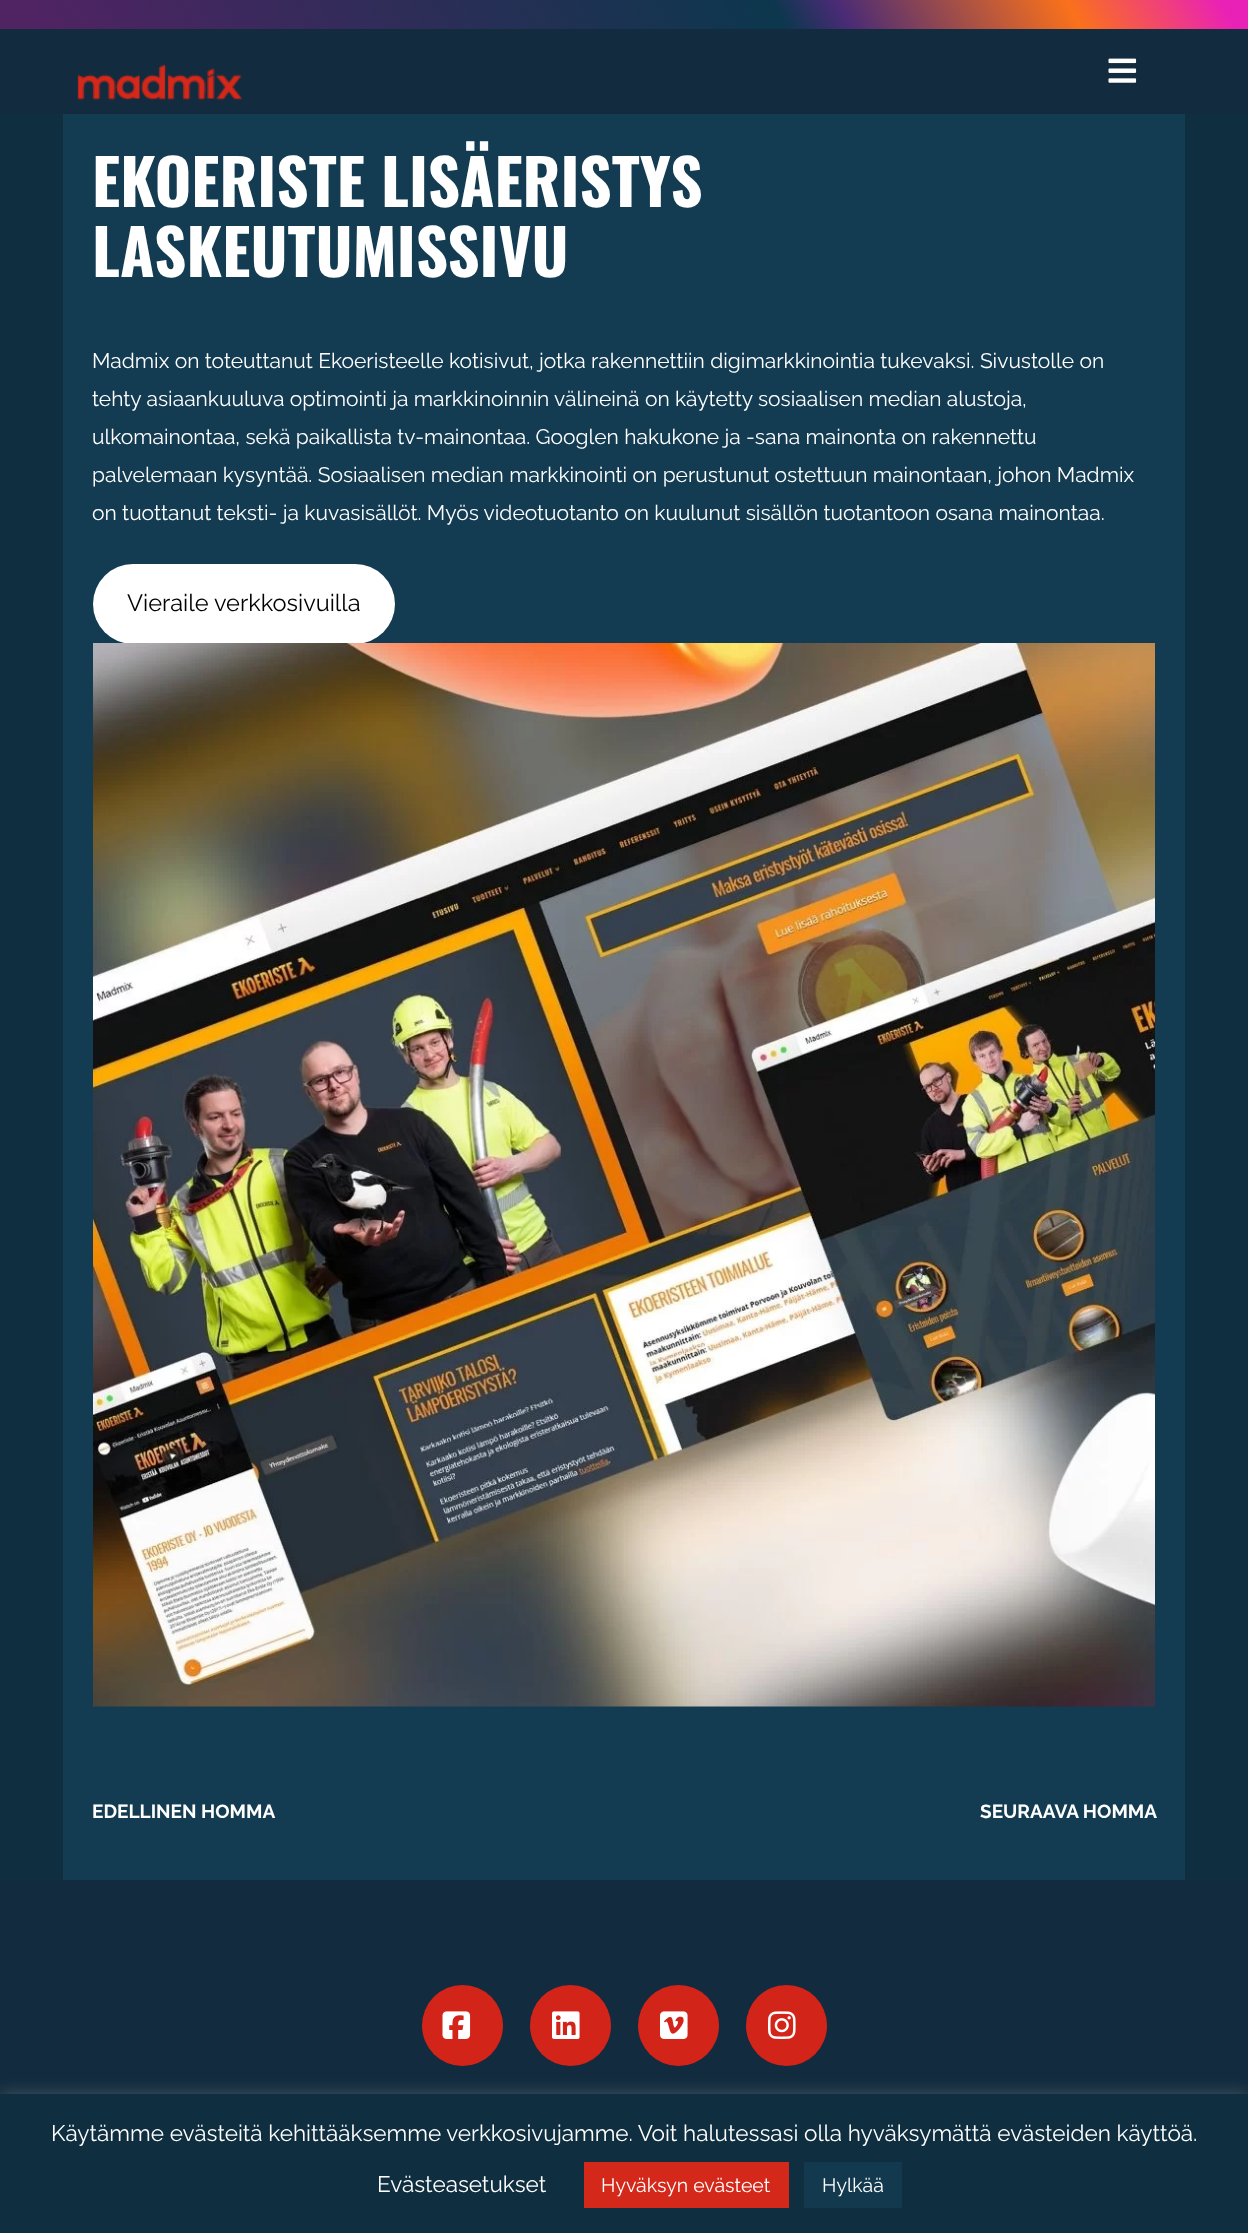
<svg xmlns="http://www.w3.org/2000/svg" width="1248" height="2233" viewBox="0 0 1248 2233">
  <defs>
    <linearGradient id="g1" gradientUnits="userSpaceOnUse" x1="141" y1="273" x2="1107" y2="-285"><stop offset="0.03" stop-color="#502363"/><stop offset="0.61" stop-color="#0c374d"/><stop offset="0.66" stop-color="#492b76"/><stop offset="0.84" stop-color="#fa711b"/><stop offset="0.96" stop-color="#ea21b6"/></linearGradient>
    <filter id="blur1" x="-50%" y="-200%" width="200%" height="500%"><feGaussianBlur stdDeviation="7.5"/></filter>
  </defs>
  <rect width="100%" height="100%" fill="#0f2f40"/>
  <rect x="0" y="0" width="1248" height="29" fill="url(#g1)"/>
  <rect x="0" y="29" width="1248" height="85" fill="#122b3e"/>
  <image x="77" y="64" width="165" height="37" href="img1.png"/>
  <image x="1108" y="58" width="29" height="25" href="img2.png"/>
  <rect x="63" y="114" width="1122" height="1766" fill="#133c52"/>
  <text x="92" y="207" font-family="Oswald" font-size="63" font-weight="bold" fill="#ffffff">EKOERISTE LISÄERISTYS</text>
  <text x="92" y="277" font-family="Oswald" font-size="63" font-weight="bold" fill="#ffffff">LASKEUTUMISSIVU</text>
  <text x="92" y="368" font-family="Raleway" font-size="21" fill="#ffffff">Madmix on toteuttanut Ekoeristeelle kotisivut, jotka rakennettiin digimarkkinointia tukevaksi. Sivustolle on</text>
  <text x="92" y="406" font-family="Raleway" font-size="21" fill="#ffffff">tehty asiaankuuluva optimointi ja markkinoinnin välineinä on käytetty sosiaalisen median alustoja,</text>
  <text x="92" y="444" font-family="Raleway" font-size="21" fill="#ffffff">ulkomainontaa, sekä paikallista tv-mainontaa. Googlen hakukone ja -sana mainonta on rakennettu</text>
  <text x="92" y="482" font-family="Raleway" font-size="21" fill="#ffffff">palvelemaan kysyntää. Sosiaalisen median markkinointi on perustunut ostettuun mainontaan, johon Madmix</text>
  <text x="92" y="520" font-family="Raleway" font-size="21" fill="#ffffff">on tuottanut teksti- ja kuvasisällöt. Myös videotuotanto on kuulunut sisällön tuotantoon osana mainontaa.</text>
  <rect x="93" y="564" width="302" height="80" rx="40" fill="#ffffff"/>
  <text x="127" y="611" font-family="Raleway" font-size="23.6" fill="#000000">Vieraile verkkosivuilla</text>
  <image x="93" y="643" width="1062" height="1064" href="img3.png"/>
  <text x="92" y="1818" font-family="Raleway" font-size="19" font-weight="bold" fill="#ffffff">EDELLINEN HOMMA</text>
  <text x="980" y="1818" font-family="Raleway" font-size="19" font-weight="bold" fill="#ffffff">SEURAAVA HOMMA</text>
  <rect x="0" y="1880" width="1248" height="214" fill="#122b3e"/>
  <circle cx="462.5" cy="2025.5" r="40.5" fill="#d3241a"/>
  <image x="442" y="2011" width="29" height="28" href="img4.png"/>
  <circle cx="570.5" cy="2025.5" r="40.5" fill="#d3241a"/>
  <image x="552" y="2011" width="28" height="28" href="img5.png"/>
  <circle cx="678.5" cy="2025.5" r="40.5" fill="#d3241a"/>
  <image x="660" y="2011" width="28" height="28" href="img6.png"/>
  <circle cx="786.5" cy="2025.5" r="40.5" fill="#d3241a"/>
  <image x="768" y="2011" width="28" height="28" href="img7.png"/>
  <rect x="0" y="2093" width="1248" height="139" fill="#acabab" fill-opacity="0.3" filter="url(#blur1)"/>
  <rect x="0" y="2094" width="1248" height="139" fill="#0f2f40"/>
  <text x="51" y="2141" font-family="Raleway" font-size="22.5" fill="#ffffff">Käytämme evästeitä kehittääksemme verkkosivujamme. Voit halutessasi olla hyväksymättä evästeiden käyttöä.</text>
  <text x="377" y="2192" font-family="Raleway" font-size="22.5" fill="#ffffff">Evästeasetukset</text>
  <rect x="584" y="2162" width="205" height="46" fill="#d3281a"/>
  <text x="601" y="2192" font-family="Raleway" font-size="19.5" fill="#ffffff">Hyväksyn evästeet</text>
  <rect x="804" y="2162" width="98" height="46" fill="#12394e"/>
  <text x="822" y="2192" font-family="Raleway" font-size="19.5" fill="#ffffff">Hylkää</text>
</svg>
